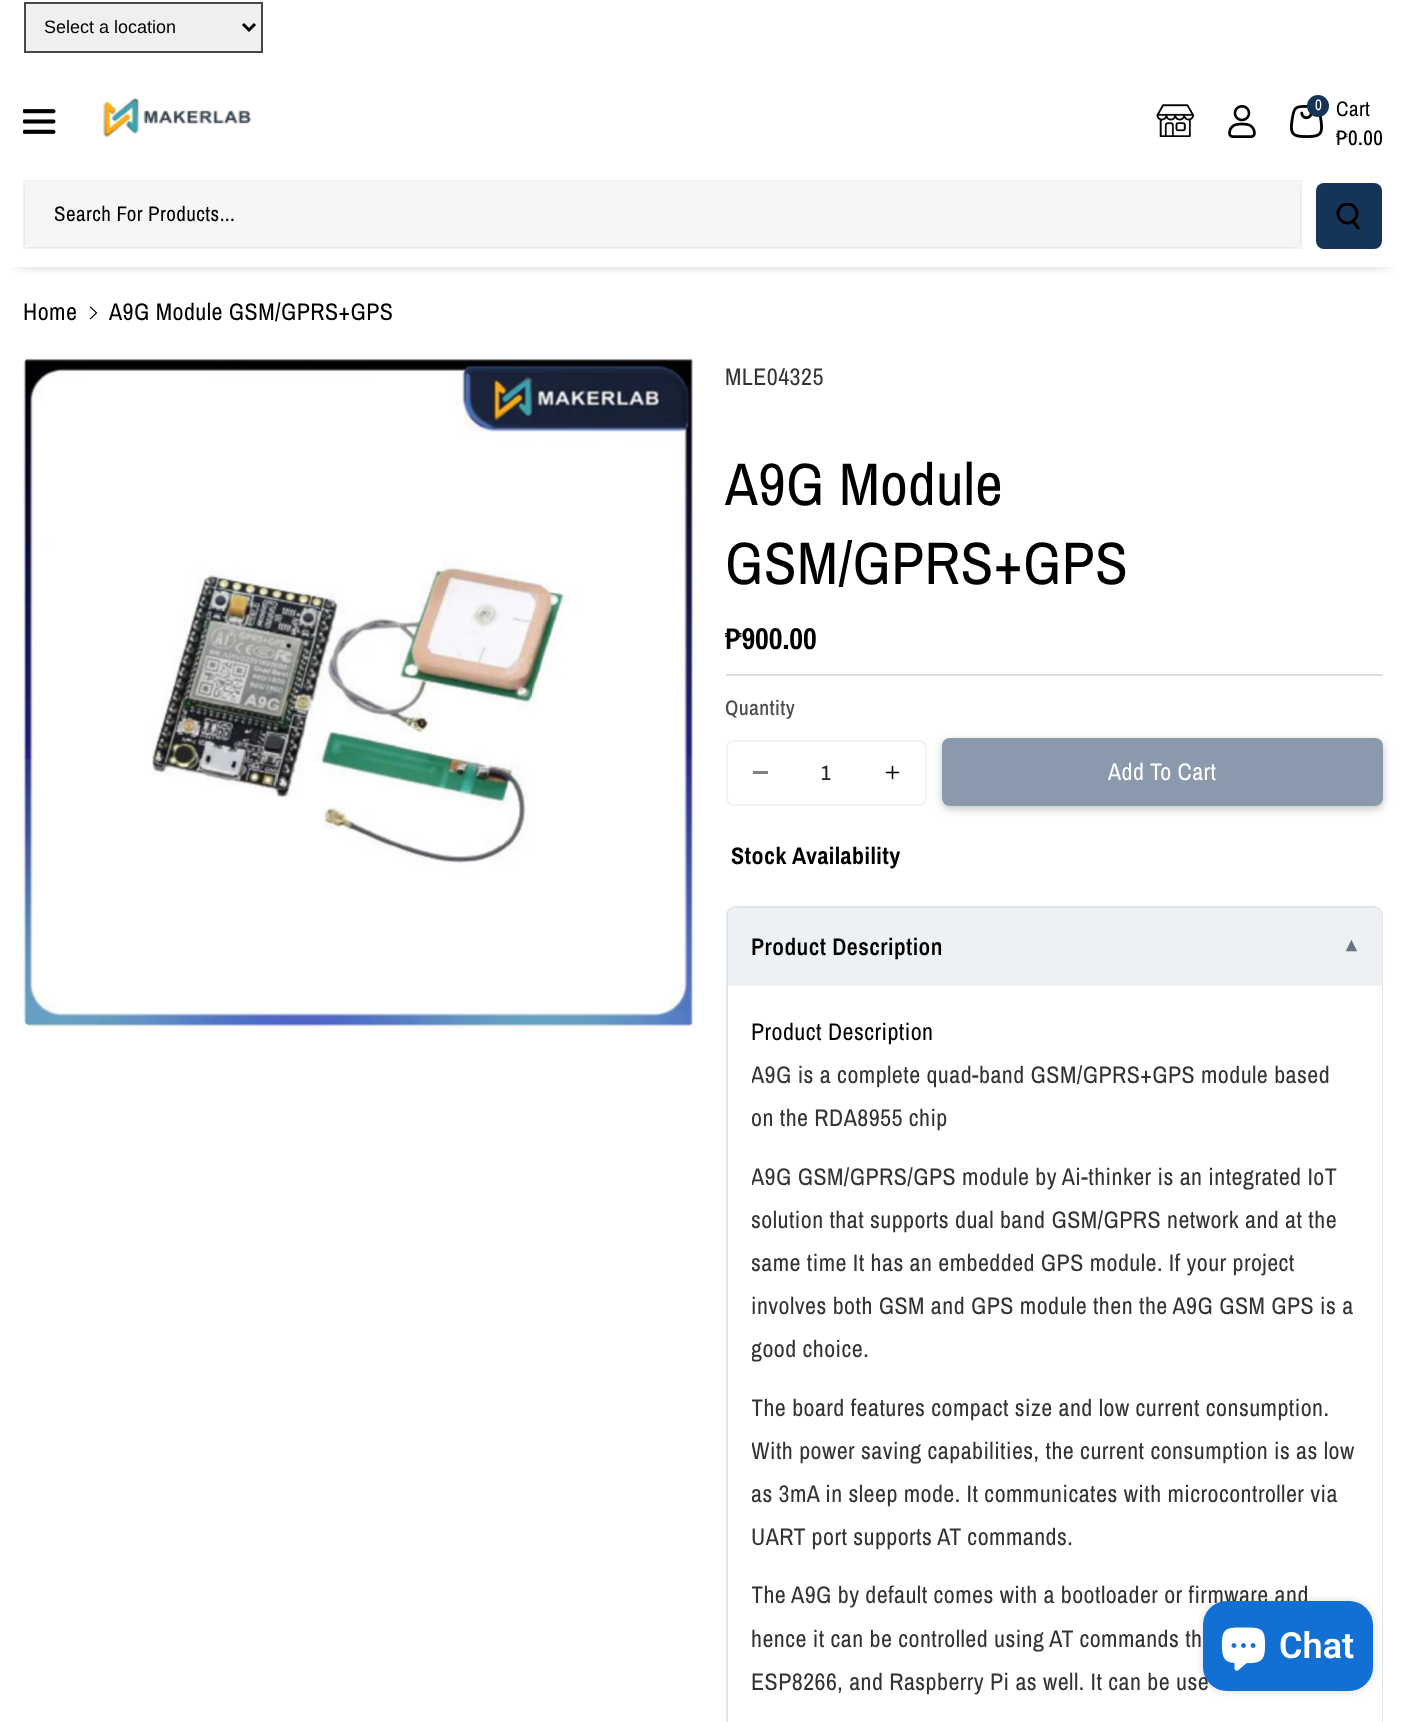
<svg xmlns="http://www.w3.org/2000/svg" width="1405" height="1722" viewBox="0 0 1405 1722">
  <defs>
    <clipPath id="clip1"><rect x="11" y="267" width="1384" height="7"/></clipPath>
    <filter id="blur1" x="-50%" y="-200%" width="200%" height="500%"><feGaussianBlur stdDeviation="9"/></filter>
    <filter id="blur2" x="-50%" y="-200%" width="200%" height="500%"><feGaussianBlur stdDeviation="4"/></filter>
    <clipPath id="clip2"><rect x="752" y="1010" width="606" height="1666"/></clipPath>
  </defs>
  <rect width="100%" height="100%" fill="#ffffff"/>
  <g clip-path="url(#clip1)">
    <rect x="18" y="27" width="1370" height="231" fill="#121212" fill-opacity="0.6" filter="url(#blur1)"/>
  </g>
  <rect x="25" y="3" width="237" height="49" fill="#efefef" stroke="#474747" stroke-width="2"/>
  <path d="M243 24L249 30L255 24" fill="none" stroke="#000000" stroke-width="3"/>
  <text x="44" y="33" font-family="Liberation Sans" font-size="18" fill="#000000">Select a location</text>
  <image x="23" y="109" width="33" height="25" href="img1.png"/>
  <image x="103" y="97" width="148" height="40" href="img2.png"/>
  <image x="1156" y="104" width="38" height="33" href="img3.png"/>
  <image x="1228" y="105" width="28" height="33" href="img4.png"/>
  <image x="1290" y="105" width="33" height="33" href="img5.png"/>
  <circle cx="1318" cy="106" r="11" fill="#153558"/>
  <text x="1315" y="110" font-family="Archivo Narrow" font-size="15" letter-spacing="0.45" fill="#ffffff">0</text>
  <text x="1336" y="116" font-family="Archivo Narrow" font-size="21" letter-spacing="0.45" fill="#000000">Cart</text>
  <text x="1336" y="145" font-family="Archivo Narrow" font-size="21" font-weight="500" letter-spacing="0.45" fill="#000000">₱0.00</text>
  <rect x="24" y="182" width="1277" height="66" rx="6" fill="#f7f6f6"/>
  <rect x="24" y="181" width="1277" height="67" fill="none" stroke="#000000" stroke-opacity="0.05" stroke-width="2"/>
  <text x="54" y="221" font-family="Archivo Narrow" font-size="21" letter-spacing="0.45" fill="#000000">Search For Products...</text>
  <rect x="1316" y="183" width="66" height="66" rx="8" fill="#153558"/>
  <image x="1336" y="203" width="24" height="27" href="img6.png"/>
  <text x="23" y="320" font-family="Archivo Narrow" font-size="24" letter-spacing="0.45" fill="#000000">Home</text>
  <image x="89" y="306" width="9" height="14" href="img7.png"/>
  <text x="109" y="320" font-family="Archivo Narrow" font-size="24" letter-spacing="0.45" fill="#000000">A9G Module GSM/GPRS+GPS</text>
  <image x="23" y="358" width="673" height="670" href="img8.png"/>
  <text x="725" y="385" font-family="Archivo Narrow" font-size="24" letter-spacing="0.45" fill="#333333">MLE04325</text>
  <text x="725" y="505" font-family="Archivo Narrow" font-size="60" letter-spacing="0.45" fill="#000000">A9G Module</text>
  <text x="725" y="584" font-family="Archivo Narrow" font-size="60" letter-spacing="0.45" fill="#000000">GSM/GPRS+GPS</text>
  <text x="725" y="649" font-family="Archivo Narrow" font-size="30" font-weight="bold" fill="#000000">₱900.00</text>
  <rect x="726" y="674" width="657" height="2" fill="#dddddd"/>
  <text x="725" y="715" font-family="Archivo Narrow" font-size="21" font-weight="500" letter-spacing="0.45" fill="#4d4d4d">Quantity</text>
  <rect x="753" y="771" width="15" height="3" fill="#808080"/>
  <image x="885" y="765" width="15" height="15" href="img9.png"/>
  <rect x="727" y="741" width="199" height="64" rx="7" fill="none" stroke="#f2f2f2" stroke-width="2"/>
  <text x="821" y="780" font-family="Archivo Narrow" font-size="21" font-weight="500" fill="#262626">1</text>
  <rect x="942" y="741" width="441" height="68" rx="8" fill="#898989" fill-opacity="0.5" filter="url(#blur2)"/>
  <rect x="942" y="738" width="441" height="68" rx="8" fill="#8a9aac"/>
  <text x="1108" y="780" font-family="Archivo Narrow" font-size="24" letter-spacing="0.45" fill="#ffffff">Add To Cart</text>
  <text x="731" y="864" font-family="Archivo Narrow" font-size="24" font-weight="bold" letter-spacing="0.45" fill="#000000">Stock Availability</text>
  <rect x="727" y="907" width="655" height="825" rx="8" fill="none" stroke="#e1e5ea" stroke-width="2"/>
  <path d="M736 908H1374C1378.5 908 1382 911.5 1382 916V986H728V916C728 911.5 731.5 908 736 908Z" fill="#eef1f4"/>
  <text x="751" y="955" font-family="Archivo Narrow" font-size="24" font-weight="600" letter-spacing="0.45" fill="#000000">Product Description</text>
  <text x="1357" y="940" transform="rotate(180 1357 940)" font-family="DejaVu Sans" font-size="21" font-weight="bold" letter-spacing="0.45" fill="#6b7280">▾</text>
  <rect x="1381" y="986" width="1" height="736" fill="#ffffff"/>
  <text x="751" y="1040" font-family="Archivo Narrow" font-size="24" letter-spacing="0.45" fill="#000000">Product Description</text>
  <g clip-path="url(#clip2)">
    <text x="751" y="1083" font-family="Archivo Narrow" font-size="24" letter-spacing="0.45" fill="#333333">A9G is a complete quad-band GSM/GPRS+GPS module based</text>
    <text x="751" y="1126" font-family="Archivo Narrow" font-size="24" letter-spacing="0.45" fill="#333333">on the RDA8955 chip</text>
    <text x="751" y="1185" font-family="Archivo Narrow" font-size="24" letter-spacing="0.45" fill="#333333">A9G GSM/GPRS/GPS module by Ai-thinker is an integrated IoT</text>
    <text x="751" y="1228" font-family="Archivo Narrow" font-size="24" letter-spacing="0.45" fill="#333333">solution that supports dual band GSM/GPRS network and at the</text>
    <text x="751" y="1271" font-family="Archivo Narrow" font-size="24" letter-spacing="0.45" fill="#333333">same time It has an embedded GPS module. If your project</text>
  </g>
  <text x="751" y="1314" font-family="Archivo Narrow" font-size="24" letter-spacing="0.45" fill="#333333">involves both GSM and GPS module then the A9G GSM GPS is a</text>
  <g clip-path="url(#clip2)">
    <text x="751" y="1357" font-family="Archivo Narrow" font-size="24" letter-spacing="0.45" fill="#333333">good choice.</text>
    <text x="751" y="1416" font-family="Archivo Narrow" font-size="24" letter-spacing="0.45" fill="#333333">The board features compact size and low current consumption.</text>
    <text x="751" y="1459" font-family="Archivo Narrow" font-size="24" letter-spacing="0.45" fill="#333333">With power saving capabilities, the current consumption is as low</text>
    <text x="751" y="1502" font-family="Archivo Narrow" font-size="24" letter-spacing="0.45" fill="#333333">as 3mA in sleep mode. It communicates with microcontroller via</text>
  </g>
  <text x="751" y="1545" font-family="Archivo Narrow" font-size="24" letter-spacing="0.45" fill="#333333">UART port supports AT commands.</text>
  <g clip-path="url(#clip2)">
    <text x="751" y="1603" font-family="Archivo Narrow" font-size="24" letter-spacing="0.45" fill="#333333">The A9G by default comes with a bootloader or firmware and</text>
  </g>
  <text x="751" y="1647" font-family="Archivo Narrow" font-size="24" letter-spacing="0.45" fill="#333333">hence it can be controlled using AT commands th</text>
  <text x="751" y="1690" font-family="Archivo Narrow" font-size="24" letter-spacing="0.45" fill="#333333">ESP8266, and Raspberry Pi as well. It can be use</text>
  <rect x="1203" y="1601" width="170" height="90" rx="24" fill="#000000" fill-opacity="0.15" filter="url(#blur2)"/>
  <rect x="1203" y="1601" width="170" height="90" rx="24" fill="#126fd3"/>
  <image x="1221" y="1627" width="45" height="44" href="img10.png"/>
  <text x="1279" y="1658" font-family="Roboto" font-size="36" font-weight="600" fill="#ffffff">Chat</text>
</svg>
